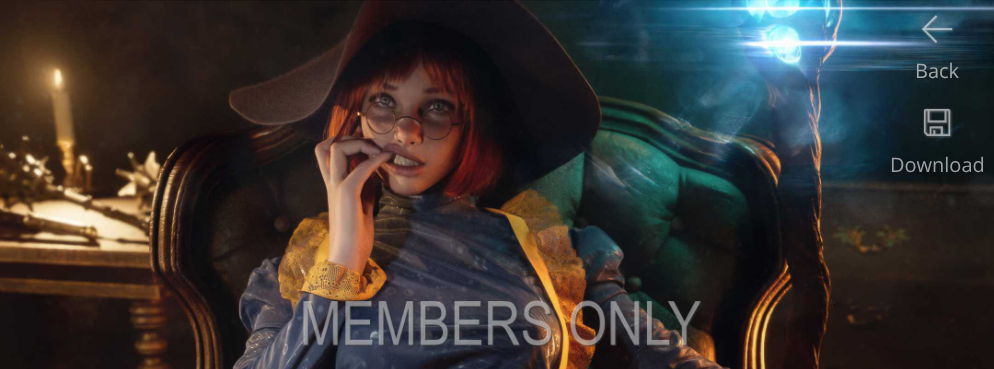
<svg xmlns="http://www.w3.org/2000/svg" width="994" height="369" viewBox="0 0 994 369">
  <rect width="100%" height="100%" fill="#ffffff"/>
  <image x="0" y="0" width="994" height="369" href="img1.png"/>
  <image x="921" y="15" width="34" height="30" href="img2.png"/>
  <text x="915" y="78" font-family="Open Sans" font-size="20" fill="#a2a9ac">Back</text>
  <image x="923" y="108" width="30" height="31" href="img3.png"/>
  <text x="890" y="172" font-family="Open Sans" font-size="20" fill="#9ea1a3">Download</text>
</svg>
